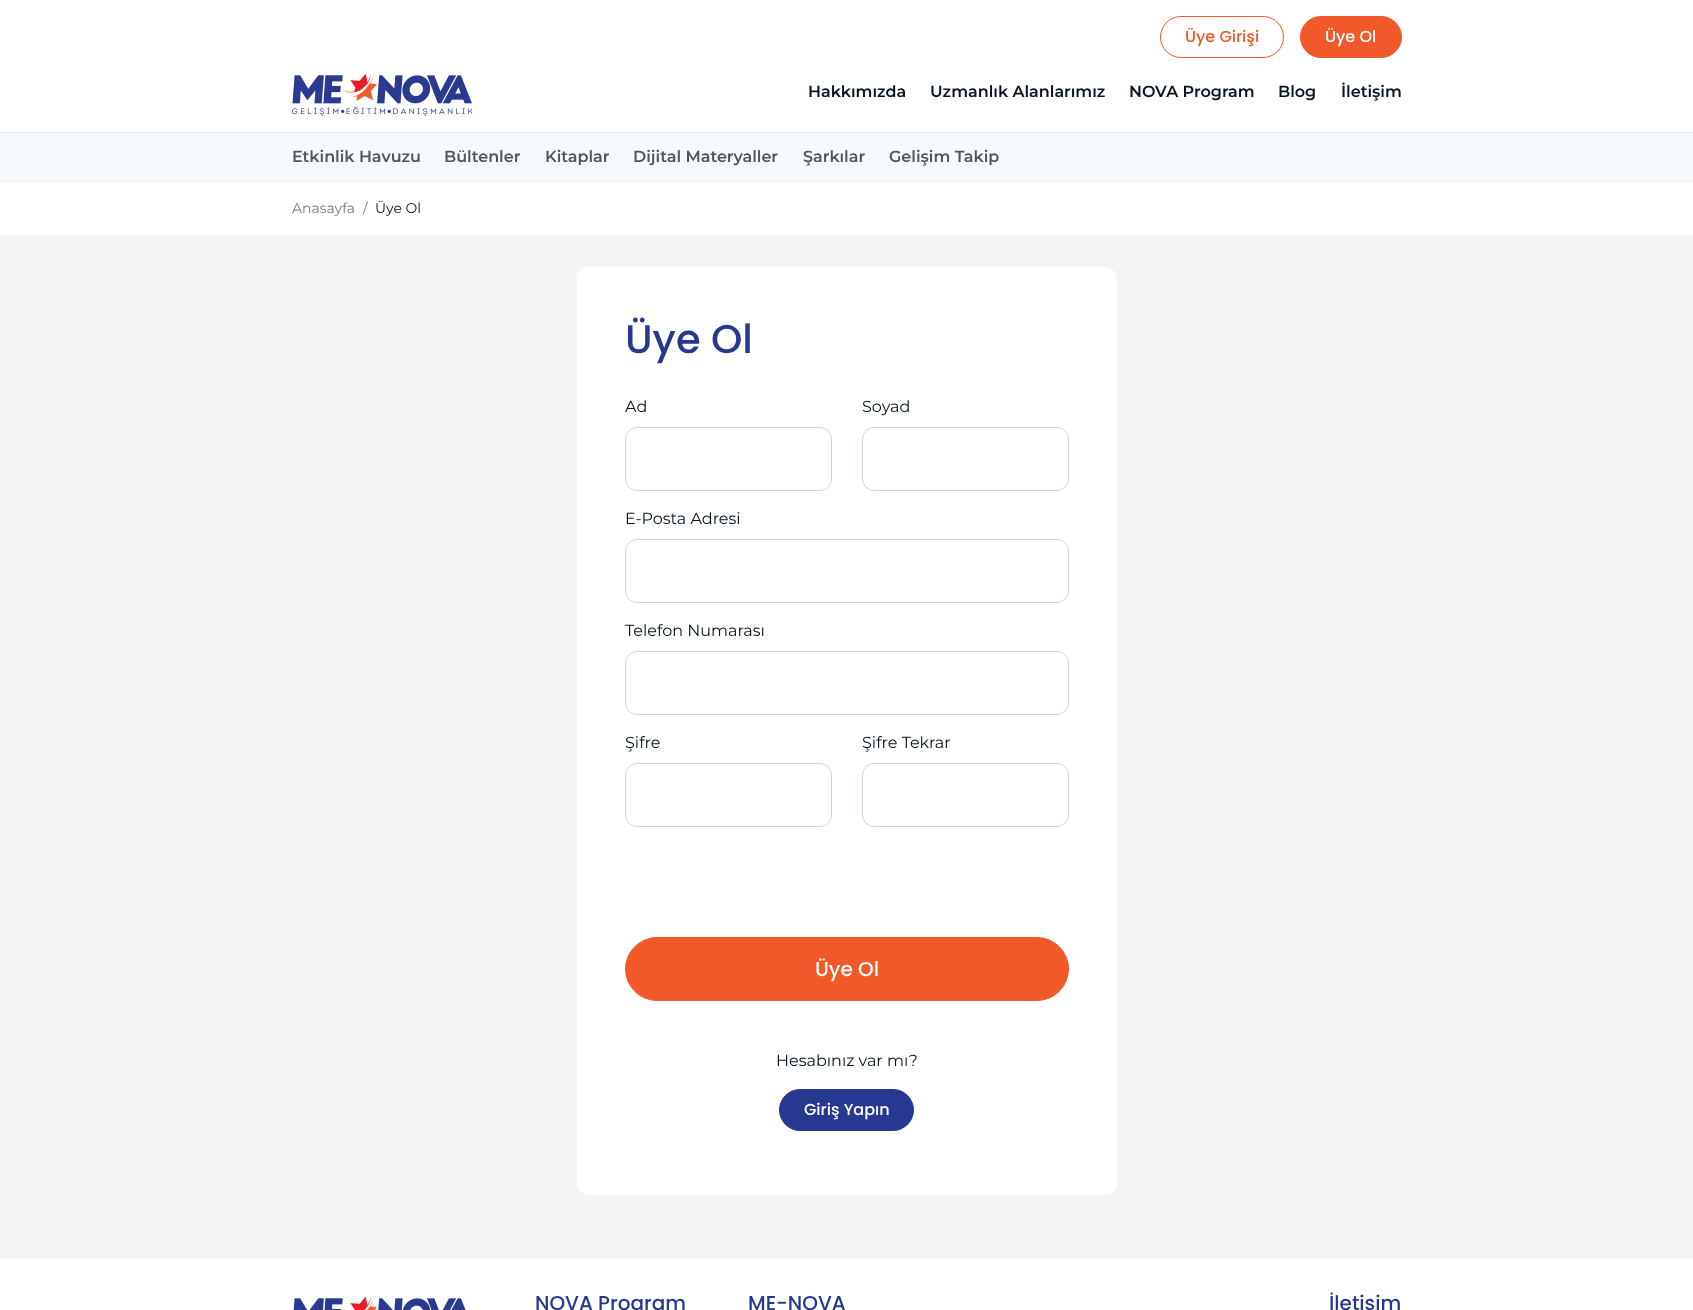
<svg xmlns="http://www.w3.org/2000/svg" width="1693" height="1310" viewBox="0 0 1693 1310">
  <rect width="100%" height="100%" fill="#ffffff"/>
  <rect x="1160.5" y="16.5" width="123" height="41" rx="20.5" fill="none" stroke="#f1592a"/>
  <text x="1185" y="42" font-family="Poppins" font-size="16" font-weight="500" fill="#f1592a">Üye Girişi</text>
  <rect x="1300.5" y="16.5" width="101" height="41" rx="20.5" fill="#f1592a" stroke="#f1592a"/>
  <text x="1325" y="42" font-family="Poppins" font-size="16" font-weight="500" fill="#ffffff">Üye Ol</text>
  <image x="292" y="72" width="180" height="44" href="img1.png"/>
  <text x="808" y="97" font-family="Montserrat" font-size="16" font-weight="600" fill="#081420">Hakkımızda</text>
  <text x="930" y="97" font-family="Montserrat" font-size="16" font-weight="600" fill="#081420">Uzmanlık Alanlarımız</text>
  <text x="1129" y="97" font-family="Montserrat" font-size="16" font-weight="600" fill="#081420">NOVA Program</text>
  <text x="1278" y="97" font-family="Montserrat" font-size="16" font-weight="600" fill="#081420">Blog</text>
  <text x="1341" y="97" font-family="Montserrat" font-size="16" font-weight="600" fill="#081420">İletişim</text>
  <rect x="0" y="133" width="1693" height="48" fill="#f7fafc"/>
  <rect x="0" y="132" width="1693" height="1" fill="#efefef"/>
  <rect x="0" y="181" width="1693" height="1" fill="#efefef"/>
  <text x="292" y="162" font-family="Montserrat" font-size="16" font-weight="600" fill="#555555">Etkinlik Havuzu</text>
  <text x="444" y="162" font-family="Montserrat" font-size="16" font-weight="600" fill="#555555">Bültenler</text>
  <text x="545" y="162" font-family="Montserrat" font-size="16" font-weight="600" fill="#555555">Kitaplar</text>
  <text x="633" y="162" font-family="Montserrat" font-size="16" font-weight="600" fill="#555555">Dijital Materyaller</text>
  <text x="803" y="162" font-family="Montserrat" font-size="16" font-weight="600" fill="#555555">Şarkılar</text>
  <text x="889" y="162" font-family="Montserrat" font-size="16" font-weight="600" fill="#555555">Gelişim Takip</text>
  <text x="292" y="213" font-family="Montserrat" font-size="14" fill="#70798b">Anasayfa</text>
  <text x="363" y="213" font-family="Montserrat" font-size="14" fill="#70798b">/</text>
  <text x="375" y="213" font-family="Montserrat" font-size="14" fill="#081420">Üye Ol</text>
  <rect x="0" y="235" width="1693" height="1024" fill="#f3f4f6"/>
  <rect x="577" y="267" width="540" height="928" rx="12" fill="#ffffff"/>
  <text x="625" y="353" font-family="Poppins" font-size="40" font-weight="500" fill="#283891">Üye Ol</text>
  <text x="625" y="412" font-family="Montserrat" font-size="16" fill="#081420">Ad</text>
  <rect x="625.5" y="427.5" width="206" height="63" rx="11.5" fill="none" stroke="#ced4da"/>
  <text x="862" y="412" font-family="Montserrat" font-size="16" fill="#081420">Soyad</text>
  <rect x="862.5" y="427.5" width="206" height="63" rx="11.5" fill="none" stroke="#ced4da"/>
  <text x="625" y="524" font-family="Montserrat" font-size="16" fill="#081420">E-Posta Adresi</text>
  <rect x="625.5" y="539.5" width="443" height="63" rx="11.5" fill="none" stroke="#ced4da"/>
  <text x="625" y="636" font-family="Montserrat" font-size="16" fill="#081420">Telefon Numarası</text>
  <rect x="625.5" y="651.5" width="443" height="63" rx="11.5" fill="none" stroke="#ced4da"/>
  <text x="625" y="748" font-family="Montserrat" font-size="16" fill="#081420">Şifre</text>
  <rect x="625.5" y="763.5" width="206" height="63" rx="11.5" fill="none" stroke="#ced4da"/>
  <text x="862" y="748" font-family="Montserrat" font-size="16" fill="#081420">Şifre Tekrar</text>
  <rect x="862.5" y="763.5" width="206" height="63" rx="11.5" fill="none" stroke="#ced4da"/>
  <rect x="625.5" y="937.5" width="443" height="63" rx="31.5" fill="#f1592a" stroke="#f1592a"/>
  <text x="815" y="976" font-family="Poppins" font-size="20" font-weight="500" fill="#ffffff">Üye Ol</text>
  <text x="776" y="1066" font-family="Montserrat" font-size="16" fill="#081420">Hesabınız var mı?</text>
  <rect x="779.5" y="1089.5" width="134" height="41" rx="20.5" fill="#283891" stroke="#283891"/>
  <text x="804" y="1115" font-family="Poppins" font-size="16" font-weight="500" fill="#ffffff">Giriş Yapın</text>
  <image x="293" y="1295" width="173" height="15" href="img2.png"/>
  <text x="535" y="1310" font-family="Poppins" font-size="20" font-weight="500" fill="#283891">NOVA Program</text>
  <text x="748" y="1310" font-family="Poppins" font-size="20" font-weight="500" fill="#283891">ME-NOVA</text>
  <text x="1329" y="1310" font-family="Poppins" font-size="20" font-weight="500" fill="#283891">İletişim</text>
</svg>
